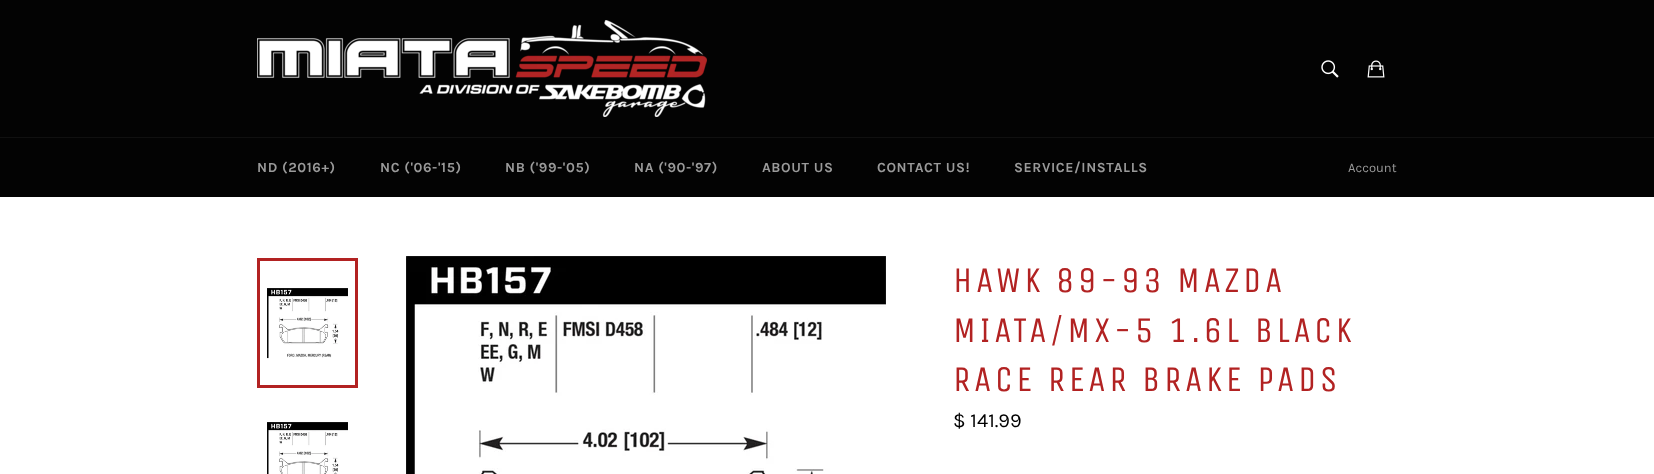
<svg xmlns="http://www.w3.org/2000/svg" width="1654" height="474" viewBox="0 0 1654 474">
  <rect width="100%" height="100%" fill="#ffffff"/>
  <rect x="0" y="0" width="1654" height="137" fill="#030303"/>
  <image x="257" y="20" width="450" height="97" href="img1.png"/>
  <image x="1321" y="60" width="18" height="18" href="img2.png"/>
  <image x="1367" y="60" width="18" height="18" href="img3.png"/>
  <rect x="0" y="138" width="1654" height="59" fill="#030303"/>
  <rect x="0" y="137" width="1654" height="1" fill="#101010"/>
  <text x="257" y="172" font-family="Karla" font-size="14" font-weight="bold" letter-spacing="0.6" fill="#9a9a9a">ND (2016+)</text>
  <text x="380" y="172" font-family="Karla" font-size="14" font-weight="bold" letter-spacing="0.6" fill="#9a9a9a">NC ('06-'15)</text>
  <text x="505" y="172" font-family="Karla" font-size="14" font-weight="bold" letter-spacing="0.6" fill="#9a9a9a">NB ('99-'05)</text>
  <text x="634" y="172" font-family="Karla" font-size="14" font-weight="bold" letter-spacing="0.6" fill="#9a9a9a">NA ('90-'97)</text>
  <text x="762" y="172" font-family="Karla" font-size="14" font-weight="bold" letter-spacing="0.6" fill="#9a9a9a">ABOUT US</text>
  <text x="877" y="172" font-family="Karla" font-size="14" font-weight="bold" letter-spacing="0.6" fill="#9a9a9a">CONTACT US!</text>
  <text x="1014" y="172" font-family="Karla" font-size="14" font-weight="bold" letter-spacing="0.6" fill="#9a9a9a">SERVICE/INSTALLS</text>
  <text x="1348" y="172" font-family="Karla" font-size="13" fill="#9a9a9a">Account</text>
  <image x="267" y="288" width="81" height="71" href="img4.png"/>
  <rect x="258.5" y="259.5" width="98" height="127" fill="none" stroke="#b22222" stroke-width="3"/>
  <image x="267" y="422" width="81" height="52" href="img5.png"/>
  <image x="406" y="256" width="480" height="218" href="img6.png"/>
  <text x="953" y="292" font-family="Unica One" font-size="36" letter-spacing="3.6" fill="#b22222">HAWK 89-93 MAZDA</text>
  <text x="953" y="342" font-family="Unica One" font-size="36" letter-spacing="3.6" fill="#b22222">MIATA/MX-5 1.6L BLACK</text>
  <text x="953" y="391" font-family="Unica One" font-size="36" letter-spacing="3.6" fill="#b22222">RACE REAR BRAKE PADS</text>
  <text x="953" y="427" font-family="Karla" font-size="20" fill="#000000">$ 141.99</text>
</svg>
